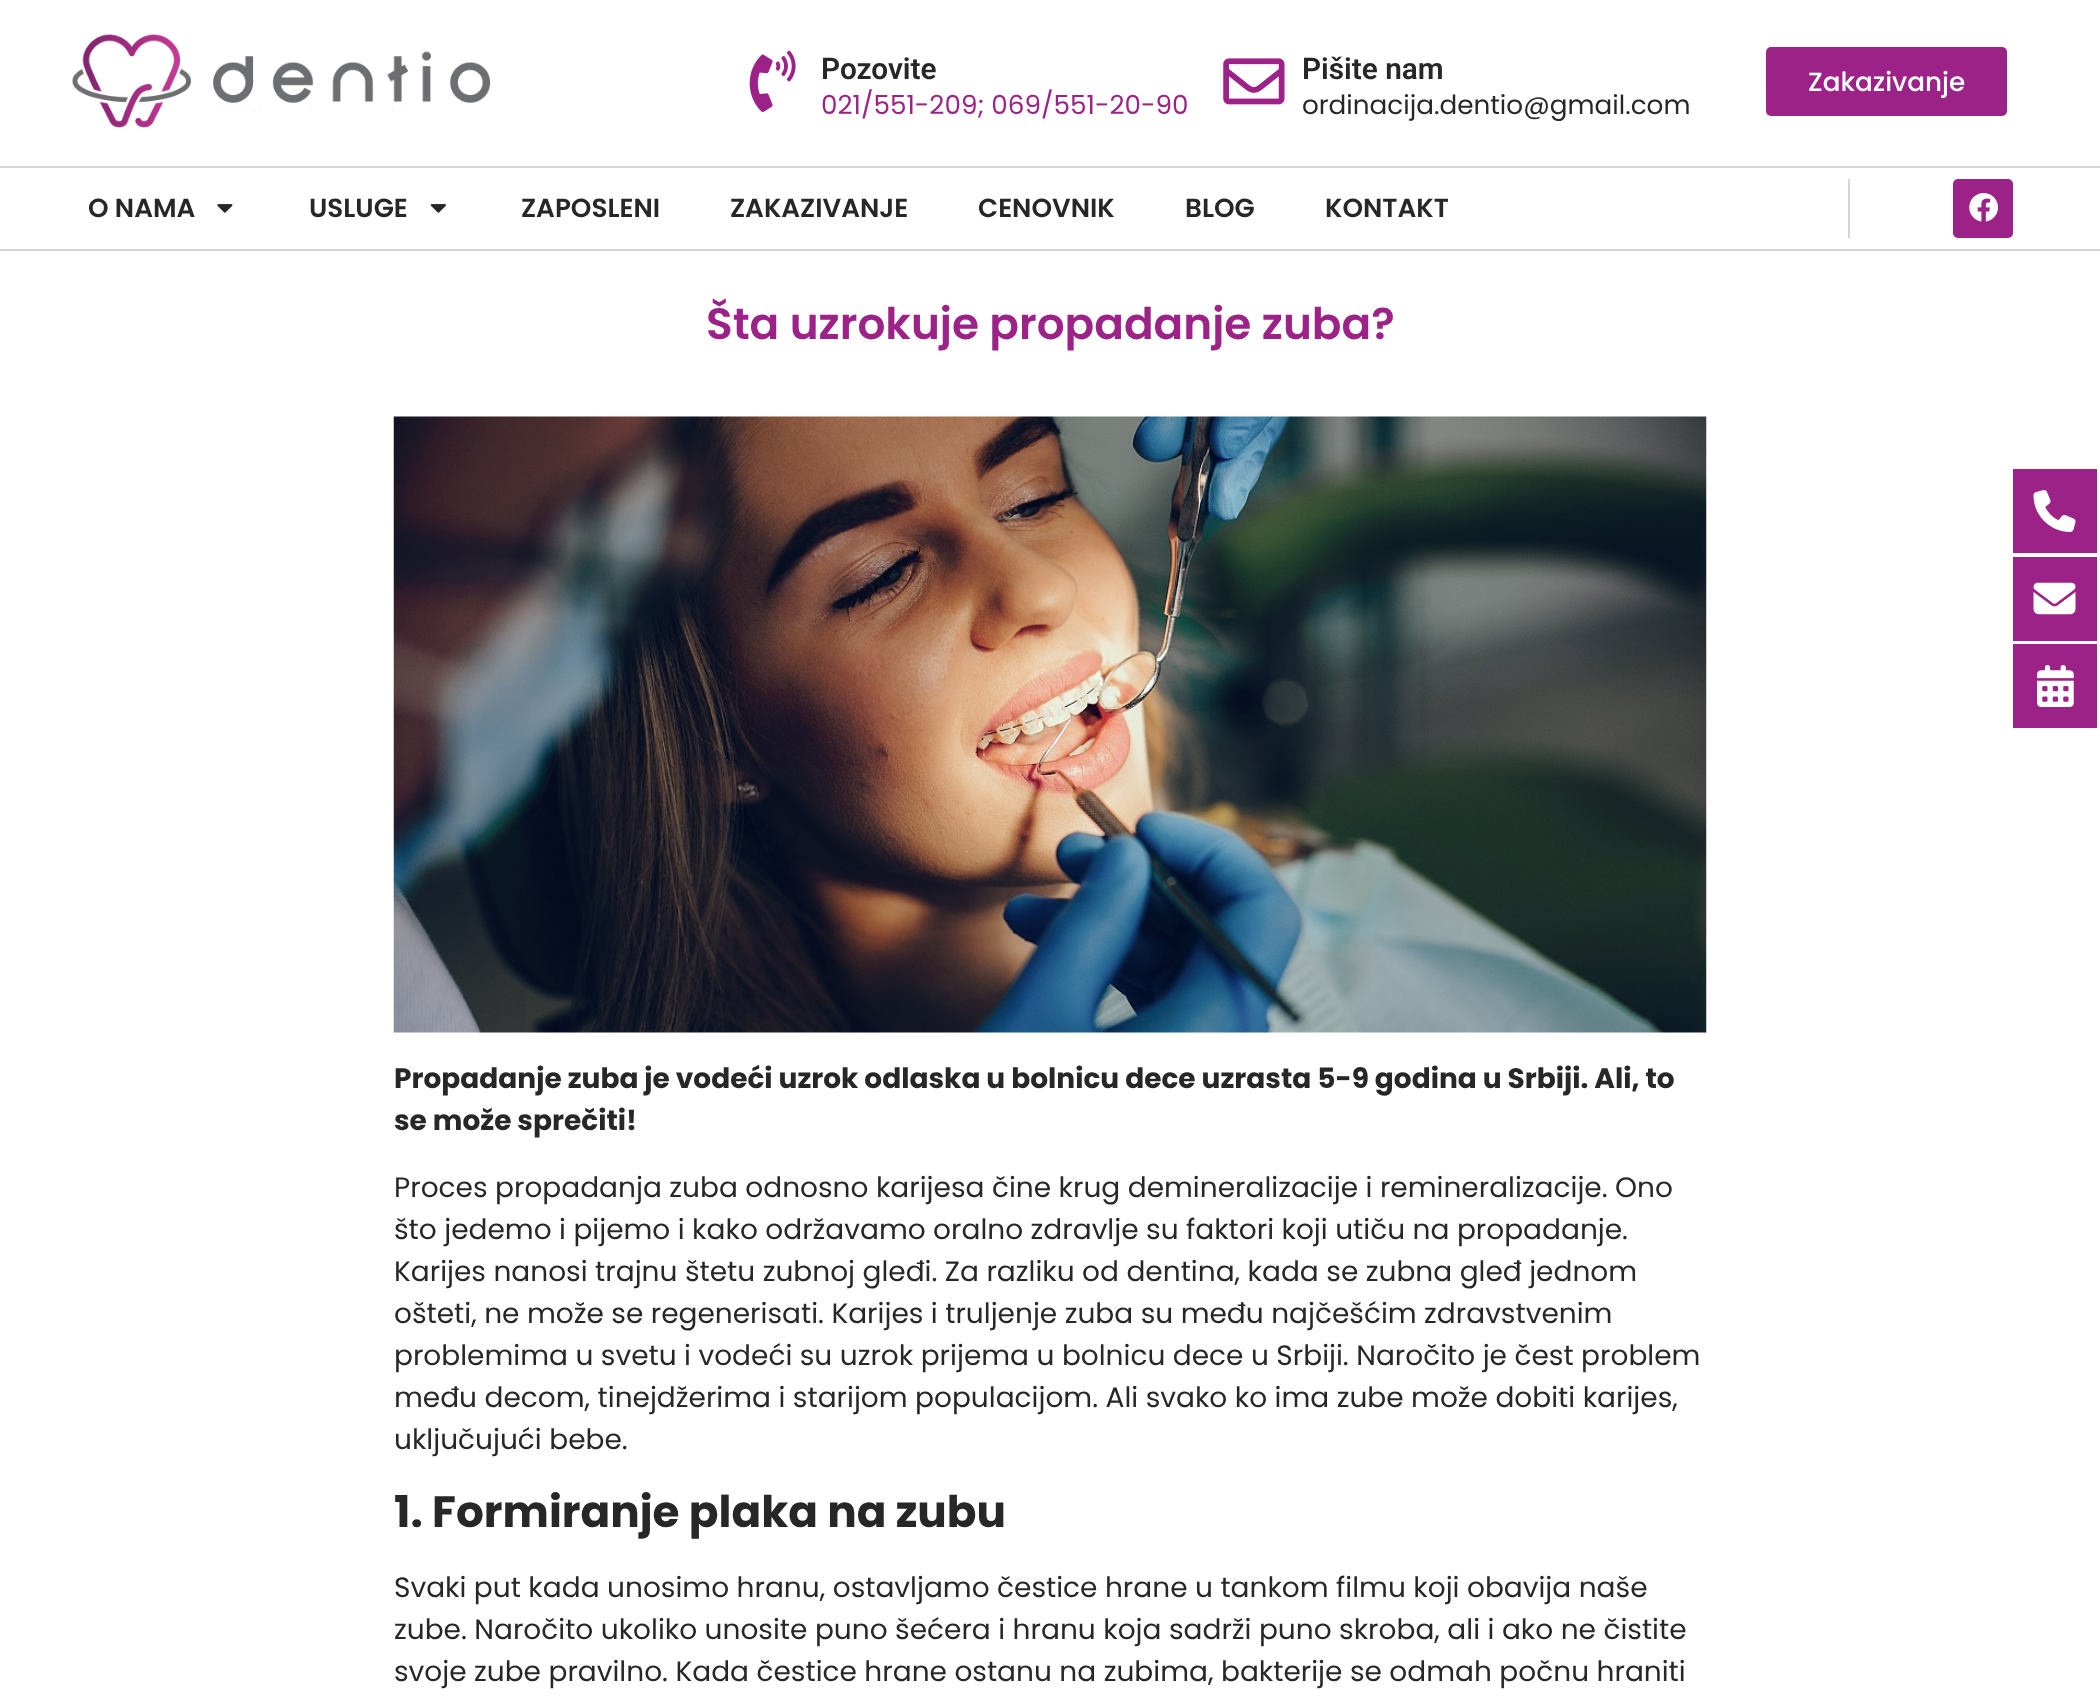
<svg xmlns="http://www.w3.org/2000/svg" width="2100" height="1696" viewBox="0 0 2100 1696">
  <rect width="100%" height="100%" fill="#ffffff"/>
  <image x="72" y="34" width="419" height="94" href="img1.png"/>
  <image x="749" y="51" width="47" height="61" href="img2.png"/>
  <text x="821" y="79" font-family="Roboto" font-size="29.75" font-weight="600" fill="#272727">Pozovite</text>
  <text x="821" y="114" font-family="Poppins" font-size="26.25" fill="#9c2288">021/551-209; 069/551-20-90</text>
  <image x="1223" y="58" width="62" height="47" href="img3.png"/>
  <text x="1302" y="79" font-family="Roboto" font-size="29.75" font-weight="600" fill="#272727">Pišite nam</text>
  <text x="1302" y="114" font-family="Poppins" font-size="26.25" fill="#272727">ordinacija.dentio@gmail.com</text>
  <rect x="1766" y="47" width="241" height="69" rx="5" fill="#9c2288"/>
  <text x="1808" y="91" font-family="Poppins" font-size="26.25" font-weight="500" fill="#ffffff">Zakazivanje</text>
  <rect x="0" y="166" width="2100" height="2" fill="#d5d5d5"/>
  <rect x="0" y="249" width="2100" height="2" fill="#d5d5d5"/>
  <text x="88" y="217" font-family="Poppins" font-size="26.25" font-weight="600" fill="#272727">O NAMA</text>
  <image x="217" y="204" width="16" height="9" href="img4.png"/>
  <text x="309" y="217" font-family="Poppins" font-size="26.25" font-weight="600" fill="#272727">USLUGE</text>
  <image x="430" y="204" width="16" height="9" href="img5.png"/>
  <text x="521" y="217" font-family="Poppins" font-size="26.25" font-weight="600" fill="#272727">ZAPOSLENI</text>
  <text x="730" y="217" font-family="Poppins" font-size="26.25" font-weight="600" fill="#272727">ZAKAZIVANJE</text>
  <text x="978" y="217" font-family="Poppins" font-size="26.25" font-weight="600" fill="#272727">CENOVNIK</text>
  <text x="1185" y="217" font-family="Poppins" font-size="26.25" font-weight="600" fill="#272727">BLOG</text>
  <text x="1325" y="217" font-family="Poppins" font-size="26.25" font-weight="600" fill="#272727">KONTAKT</text>
  <rect x="1848" y="179" width="2" height="59" fill="#d5d5d5"/>
  <rect x="1953" y="179" width="60" height="59" rx="5" fill="#9c2288"/>
  <image x="1969" y="193" width="29" height="29" href="img6.png"/>
  <text x="706" y="339" font-family="Poppins" font-size="43.75" font-weight="600" fill="#9c2288">Šta uzrokuje propadanje zuba?</text>
  <image x="393" y="416" width="1314" height="617" href="img7.png"/>
  <text x="394" y="1088" font-family="Poppins" font-size="28" font-weight="bold" fill="#272727">Propadanje zuba je vodeći uzrok odlaska u bolnicu dece uzrasta 5-9 godina u Srbiji. Ali, to</text>
  <text x="394" y="1130" font-family="Poppins" font-size="28" font-weight="bold" fill="#272727">se može sprečiti!</text>
  <text x="394" y="1197" font-family="Poppins" font-size="28" fill="#272727">Proces propadanja zuba odnosno karijesa čine krug demineralizacije i remineralizacije. Ono</text>
  <text x="394" y="1239" font-family="Poppins" font-size="28" fill="#272727">što jedemo i pijemo i kako održavamo oralno zdravlje su faktori koji utiču na propadanje.</text>
  <text x="394" y="1281" font-family="Poppins" font-size="28" fill="#272727">Karijes nanosi trajnu štetu zubnoj gleđi. Za razliku od dentina, kada se zubna gleđ jednom</text>
  <text x="394" y="1323" font-family="Poppins" font-size="28" fill="#272727">ošteti, ne može se regenerisati. Karijes i truljenje zuba su među najčešćim zdravstvenim</text>
  <text x="394" y="1365" font-family="Poppins" font-size="28" fill="#272727">problemima u svetu i vodeći su uzrok prijema u bolnicu dece u Srbiji. Naročito je čest problem</text>
  <text x="394" y="1407" font-family="Poppins" font-size="28" fill="#272727">među decom, tinejdžerima i starijom populacijom. Ali svako ko ima zube može dobiti karijes,</text>
  <text x="394" y="1449" font-family="Poppins" font-size="28" fill="#272727">uključujući bebe.</text>
  <text x="394" y="1527" font-family="Poppins" font-size="43.75" font-weight="bold" fill="#272727">1. Formiranje plaka na zubu</text>
  <text x="394" y="1597" font-family="Poppins" font-size="28" fill="#272727">Svaki put kada unosimo hranu, ostavljamo čestice hrane u tankom filmu koji obavija naše</text>
  <text x="394" y="1639" font-family="Poppins" font-size="28" fill="#272727">zube. Naročito ukoliko unosite puno šećera i hranu koja sadrži puno skroba, ali i ako ne čistite</text>
  <text x="394" y="1681" font-family="Poppins" font-size="28" fill="#272727">svoje zube pravilno. Kada čestice hrane ostanu na zubima, bakterije se odmah počnu hraniti</text>
  <rect x="2013" y="469" width="84" height="84" fill="#9c2288"/>
  <image x="2033" y="490" width="43" height="42" href="img8.png"/>
  <rect x="2013" y="557" width="84" height="84" fill="#9c2288"/>
  <image x="2033" y="582" width="43" height="33" href="img9.png"/>
  <rect x="2013" y="644" width="84" height="84" fill="#9c2288"/>
  <image x="2037" y="665" width="37" height="42" href="img10.png"/>
</svg>
